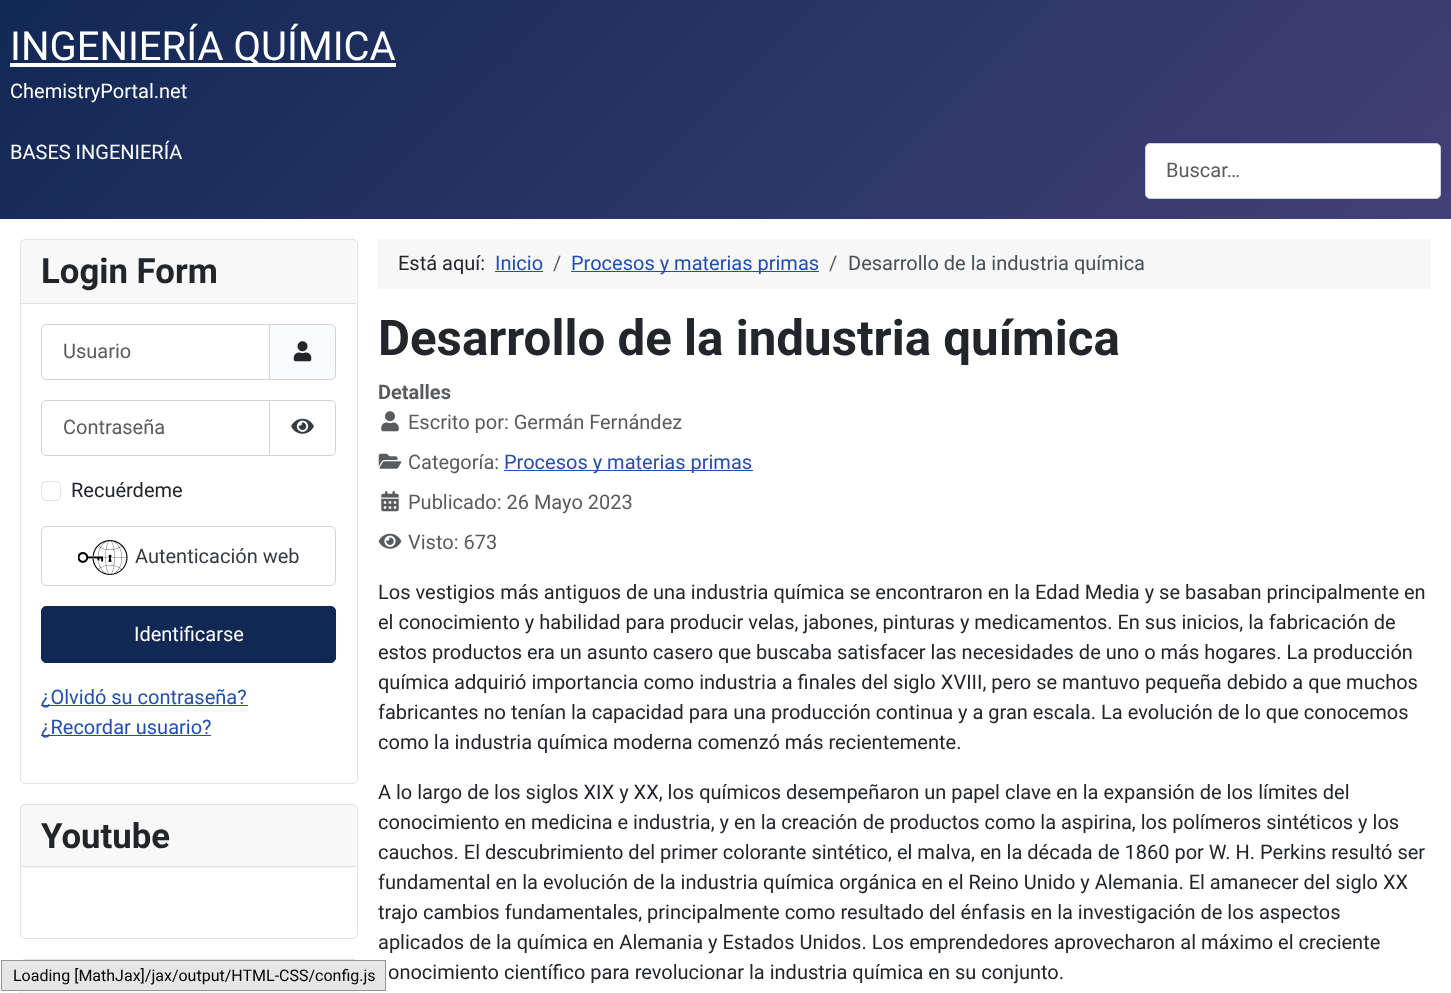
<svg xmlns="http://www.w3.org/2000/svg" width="1451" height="993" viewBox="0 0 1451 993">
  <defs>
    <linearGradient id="g1" gradientUnits="userSpaceOnUse" x1="308" y1="-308" x2="1143" y2="527"><stop offset="0" stop-color="#112855"/><stop offset="1" stop-color="#424077"/></linearGradient>
  </defs>
  <rect width="100%" height="100%" fill="#ffffff"/>
  <rect x="0" y="0" width="1451" height="219" fill="url(#g1)"/>
  <rect x="10" y="63" width="386" height="4" fill="#ffffff"/>
  <text x="10" y="60" font-family="Roboto" font-size="40" fill="#ffffff">INGENIERÍA QUÍMICA</text>
  <text x="10" y="98" font-family="Roboto" font-size="20" fill="#ffffff">ChemistryPortal.net</text>
  <text x="10" y="159" font-family="Roboto" font-size="20" fill="#ffffff">BASES INGENIERÍA</text>
  <rect x="1145.5" y="143.5" width="295" height="55" rx="4.5" fill="#ffffff" stroke="#ced4da"/>
  <text x="1166" y="177" font-family="Roboto" font-size="20" fill="#595c5f">Buscar…</text>
  <rect x="20.5" y="239.5" width="337" height="544" rx="4.5" fill="none" stroke="#dfe3e7"/>
  <rect x="21" y="240" width="335" height="63" fill="#22262a" fill-opacity="0.03"/>
  <rect x="21" y="303" width="335" height="1" fill="#dfe3e7"/>
  <text x="41" y="283" font-family="Roboto" font-size="34.75" font-weight="bold" fill="#22262a">Login Form</text>
  <path d="M269.5 324.5H331C333.5 324.5 335.5 326.5 335.5 329V375C335.5 377.5 333.5 379.5 331 379.5H269.5Z" fill="#f9fafb" stroke="#ced4da"/>
  <path d="M46 324.5H269.5V379.5H46C43.5 379.5 41.5 377.5 41.5 375V329C41.5 326.5 43.5 324.5 46 324.5Z" fill="none" stroke="#ced4da"/>
  <text x="63" y="358" font-family="Roboto" font-size="20" fill="#595c5f">Usuario</text>
  <image x="293" y="341" width="19" height="21" href="img1.png"/>
  <path d="M46 400.5H269.5V455.5H46C43.5 455.5 41.5 453.5 41.5 451V405C41.5 402.5 43.5 400.5 46 400.5Z" fill="none" stroke="#ced4da"/>
  <text x="63" y="434" font-family="Roboto" font-size="20" fill="#595c5f">Contraseña</text>
  <path d="M269.5 400.5H331C333.5 400.5 335.5 402.5 335.5 405V451C335.5 453.5 333.5 455.5 331 455.5H269.5Z" fill="#ffffff" stroke="#ced4da"/>
  <image x="291" y="418" width="23" height="16" href="img2.png"/>
  <rect x="41.5" y="481.5" width="19" height="19" rx="4.5" fill="none" stroke="#dfe3e7"/>
  <text x="71" y="497" font-family="Roboto" font-size="20" fill="#22262a">Recuérdeme</text>
  <rect x="41.5" y="526.5" width="294" height="59" rx="4.5" fill="none" stroke="#ced4da"/>
  <image x="78" y="540" width="50" height="35" href="img3.png"/>
  <text x="135" y="563" font-family="Roboto" font-size="20" fill="#353b41">Autenticación web</text>
  <rect x="41.5" y="606.5" width="294" height="56" rx="4.5" fill="#112855" stroke="#112855"/>
  <text x="134" y="641" font-family="Roboto" font-size="20" fill="#ffffff">Identificarse</text>
  <rect x="41" y="705" width="207" height="1" fill="#224faa"/>
  <text x="41" y="704" font-family="Roboto" font-size="20" fill="#224faa">¿Olvidó su contraseña?</text>
  <rect x="41" y="735" width="170" height="1" fill="#224faa"/>
  <text x="41" y="734" font-family="Roboto" font-size="20" fill="#224faa">¿Recordar usuario?</text>
  <rect x="20.5" y="804.5" width="337" height="134" rx="4.5" fill="none" stroke="#dfe3e7"/>
  <rect x="21" y="805" width="335" height="63" fill="#22262a" fill-opacity="0.03"/>
  <rect x="21" y="866" width="335" height="1" fill="#dfe3e7"/>
  <text x="41" y="848" font-family="Roboto" font-size="34.75" font-weight="bold" fill="#22262a">Youtube</text>
  <rect x="20.5" y="959.5" width="337" height="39" rx="4.5" fill="none" stroke="#dfe3e7"/>
  <rect x="21" y="991" width="335" height="2" fill="#22262a" fill-opacity="0.03"/>
  <rect x="378" y="239" width="1053" height="50" fill="#f7f7f7"/>
  <text x="398" y="270" font-family="Roboto" font-size="20" fill="#22262a">Está aquí:</text>
  <text x="495" y="270" font-family="Roboto" font-size="20" fill="#224faa">Inicio</text>
  <rect x="495" y="271" width="48" height="1" fill="#224faa"/>
  <text x="553" y="270" font-family="Roboto" font-size="20" fill="#595c5f">/</text>
  <rect x="571" y="271" width="248" height="1" fill="#224faa"/>
  <text x="571" y="270" font-family="Roboto" font-size="20" fill="#224faa">Procesos y materias primas</text>
  <text x="829" y="270" font-family="Roboto" font-size="20" fill="#595c5f">/</text>
  <text x="848" y="270" font-family="Roboto" font-size="20" fill="#484f56">Desarrollo de la industria química</text>
  <text x="378" y="355" font-family="Roboto" font-size="49.25" font-weight="bold" fill="#22262a">Desarrollo de la industria química</text>
  <text x="378" y="399" font-family="Roboto" font-size="20" font-weight="bold" fill="#595c5f">Detalles</text>
  <image x="381" y="411" width="18" height="21" href="img4.png"/>
  <text x="408" y="429" font-family="Roboto" font-size="20" fill="#595c5f">Escrito por: Germán Fernández</text>
  <image x="378" y="453" width="24" height="16" href="img5.png"/>
  <text x="408" y="469" font-family="Roboto" font-size="20" fill="#595c5f">Categoría:</text>
  <rect x="504" y="470" width="249" height="1" fill="#224faa"/>
  <text x="504" y="469" font-family="Roboto" font-size="20" fill="#224faa">Procesos y materias primas</text>
  <image x="381" y="491" width="18" height="21" href="img6.png"/>
  <text x="408" y="509" font-family="Roboto" font-size="20" fill="#595c5f">Publicado: 26 Mayo 2023</text>
  <image x="378" y="533" width="24" height="16" href="img7.png"/>
  <text x="408" y="549" font-family="Roboto" font-size="20" fill="#595c5f">Visto: 673</text>
  <text x="378" y="599" font-family="Roboto" font-size="20" fill="#22262a">Los vestigios más antiguos de una industria química se encontraron en la Edad Media y se basaban principalmente en</text>
  <text x="378" y="629" font-family="Roboto" font-size="20" fill="#22262a">el conocimiento y habilidad para producir velas, jabones, pinturas y medicamentos. En sus inicios, la fabricación de</text>
  <text x="378" y="659" font-family="Roboto" font-size="20" fill="#22262a">estos productos era un asunto casero que buscaba satisfacer las necesidades de uno o más hogares. La producción</text>
  <text x="378" y="689" font-family="Roboto" font-size="20" fill="#22262a">química adquirió importancia como industria a finales del siglo XVIII, pero se mantuvo pequeña debido a que muchos</text>
  <text x="378" y="719" font-family="Roboto" font-size="20" fill="#22262a">fabricantes no tenían la capacidad para una producción continua y a gran escala. La evolución de lo que conocemos</text>
  <text x="378" y="749" font-family="Roboto" font-size="20" fill="#22262a">como la industria química moderna comenzó más recientemente.</text>
  <text x="378" y="799" font-family="Roboto" font-size="20" fill="#22262a">A lo largo de los siglos XIX y XX, los químicos desempeñaron un papel clave en la expansión de los límites del</text>
  <text x="378" y="829" font-family="Roboto" font-size="20" fill="#22262a">conocimiento en medicina e industria, y en la creación de productos como la aspirina, los polímeros sintéticos y los</text>
  <text x="378" y="859" font-family="Roboto" font-size="20" fill="#22262a">cauchos. El descubrimiento del primer colorante sintético, el malva, en la década de 1860 por W. H. Perkins resultó ser</text>
  <text x="378" y="889" font-family="Roboto" font-size="20" fill="#22262a">fundamental en la evolución de la industria química orgánica en el Reino Unido y Alemania. El amanecer del siglo XX</text>
  <text x="378" y="919" font-family="Roboto" font-size="20" fill="#22262a">trajo cambios fundamentales, principalmente como resultado del énfasis en la investigación de los aspectos</text>
  <text x="378" y="949" font-family="Roboto" font-size="20" fill="#22262a">aplicados de la química en Alemania y Estados Unidos. Los emprendedores aprovecharon al máximo el creciente</text>
  <text x="388" y="979" font-family="Roboto" font-size="20" fill="#22262a">onocimiento científico para revolucionar la industria química en su conjunto.</text>
  <rect x="1.5" y="960.5" width="384" height="30" fill="#e6e6e6" stroke="#959595"/>
  <text x="13" y="981" font-family="Roboto" font-size="16" fill="#000000">Loading [MathJax]/jax/output/HTML-CSS/config.js</text>
</svg>
